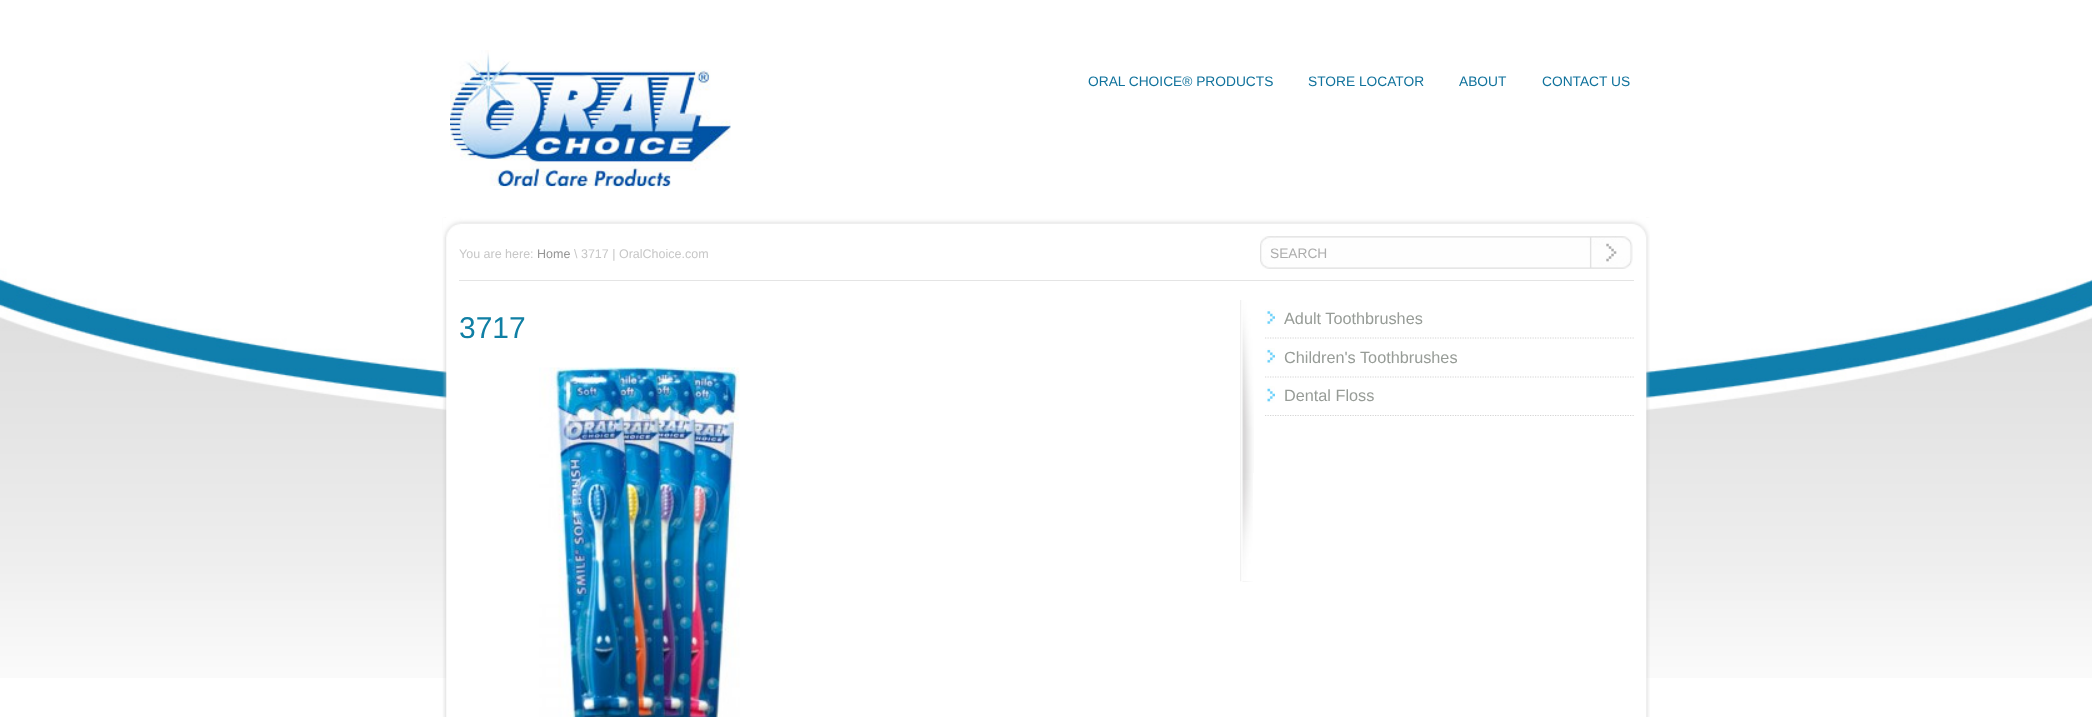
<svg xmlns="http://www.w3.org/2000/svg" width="2092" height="717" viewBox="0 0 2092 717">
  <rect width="100%" height="100%" fill="#ffffff"/>
  <image x="450" y="50" width="281" height="137" href="img1.png"/>
  <text x="1088" y="86" font-family="Liberation Sans" font-size="13.75" fill="#10729c">ORAL CHOICE® PRODUCTS</text>
  <text x="1308" y="86" font-family="Liberation Sans" font-size="13.75" fill="#10729c">STORE LOCATOR</text>
  <text x="1459" y="86" font-family="Liberation Sans" font-size="13.75" fill="#10729c">ABOUT</text>
  <text x="1542" y="86" font-family="Liberation Sans" font-size="13.75" fill="#10729c">CONTACT US</text>
  <image x="0" y="249" width="2092" height="429" href="img2.png"/>
  <image x="442" y="217" width="1208" height="500" href="img4.png"/>
  <image x="443" y="217" width="1207" height="20" href="img3.png"/>
  <rect x="459" y="280" width="1175" height="1" fill="#e4e4e4"/>
  <text x="459" y="258" font-family="Liberation Sans" font-size="12.5" fill="#c7c7c7">You are here:</text>
  <text x="537" y="258" font-family="Liberation Sans" font-size="12.5" fill="#969696">Home</text>
  <text x="574" y="258" font-family="Liberation Sans" font-size="12.5" fill="#c7c7c7">\ 3717 | OralChoice.com</text>
  <image x="1260" y="236" width="373" height="33" href="img5.png"/>
  <text x="1270" y="258" font-family="Liberation Sans" font-size="13.75" fill="#adadad">SEARCH</text>
  <text x="459" y="338" font-family="Liberation Sans" font-size="30" fill="#107fa4">3717</text>
  <image x="539" y="367" width="201" height="350" href="img6.png"/>
  <image x="1240" y="300" width="13" height="282" href="img7.png"/>
  <image x="1242" y="480" width="11" height="101" href="img8.png"/>
  <image x="1242" y="300" width="12" height="173" href="img9.png"/>
  <path d="M1265 338H1634" fill="none" stroke="#d5d5d5" stroke-width="1.2" stroke-dasharray="1.25 1.25"/>
  <image x="1265" y="309" width="10" height="17" href="img10.png"/>
  <text x="1284" y="324" font-family="Liberation Sans" font-size="16.25" fill="#979c97">Adult Toothbrushes</text>
  <path d="M1265 377H1634" fill="none" stroke="#d5d5d5" stroke-width="1.2" stroke-dasharray="1.25 1.25"/>
  <image x="1265" y="348" width="10" height="17" href="img11.png"/>
  <text x="1284" y="363" font-family="Liberation Sans" font-size="16.25" fill="#979c97">Children's Toothbrushes</text>
  <path d="M1265 415.5H1634" fill="none" stroke="#d5d5d5" stroke-width="1.2" stroke-dasharray="1.25 1.25"/>
  <image x="1265" y="386" width="10" height="17" href="img12.png"/>
  <text x="1284" y="401" font-family="Liberation Sans" font-size="16.25" fill="#979c97">Dental Floss</text>
</svg>
